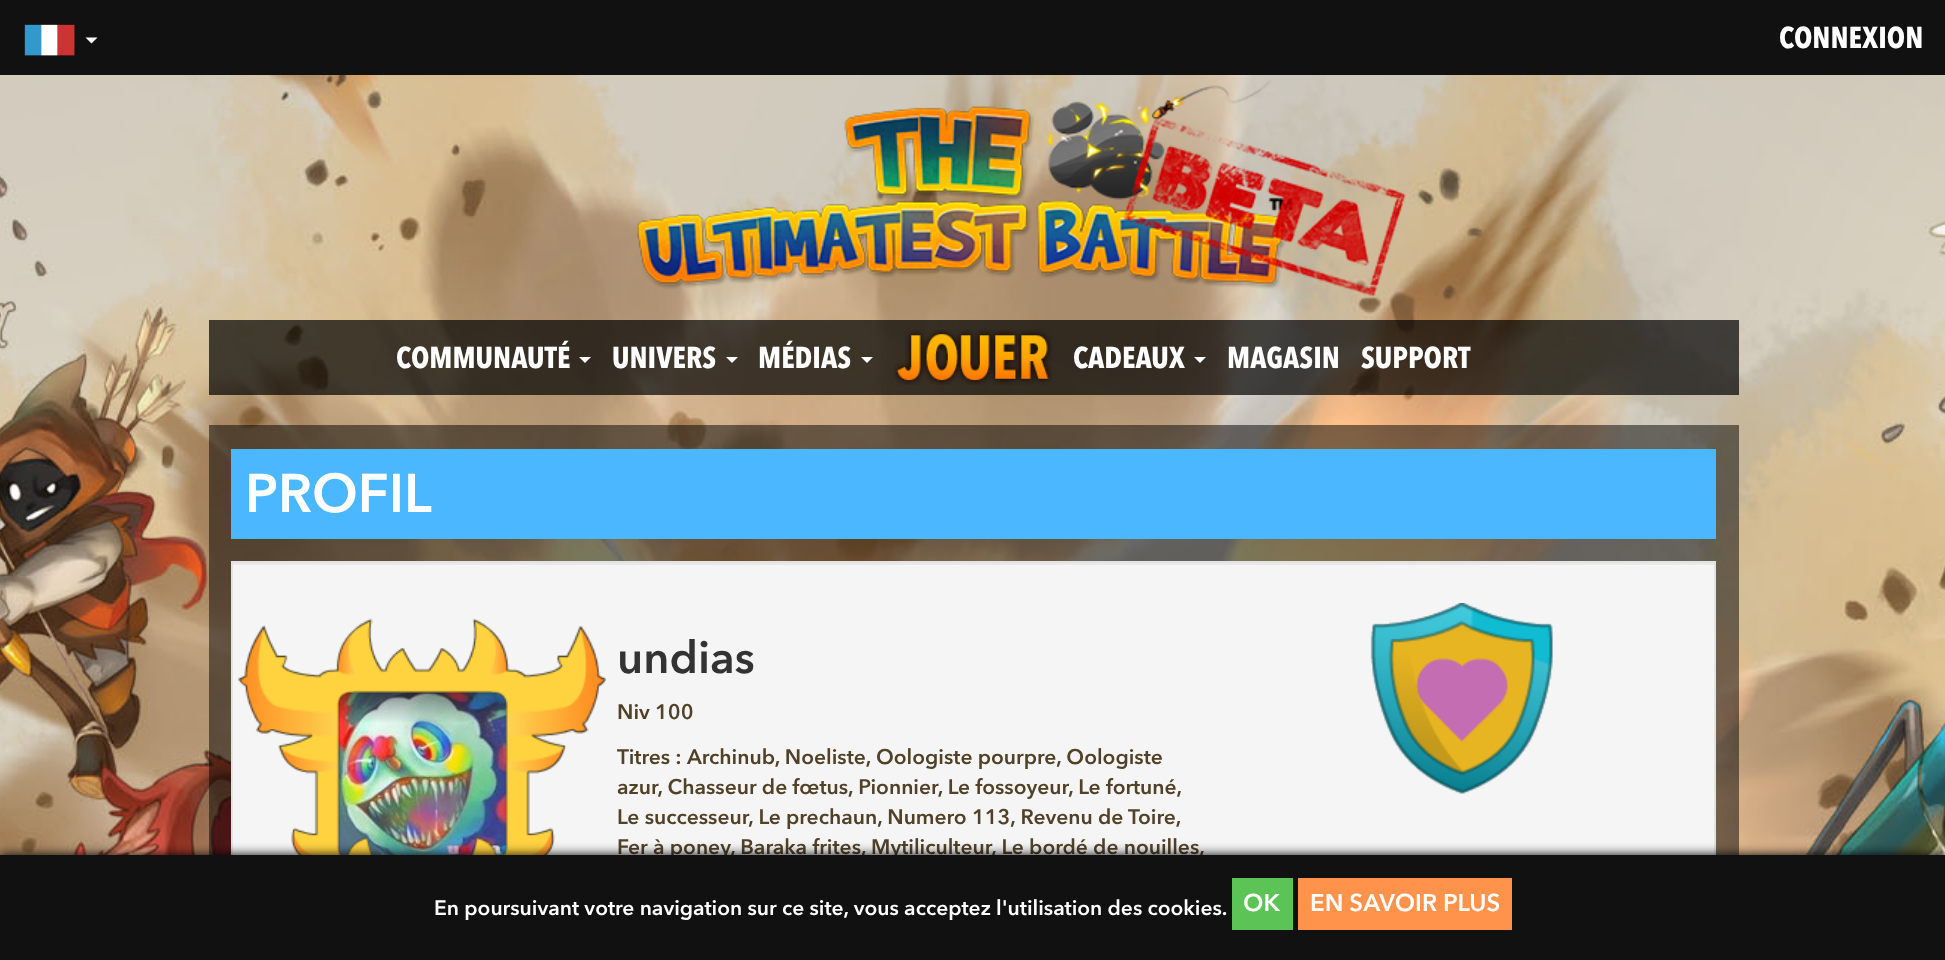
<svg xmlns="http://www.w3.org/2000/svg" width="1945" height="960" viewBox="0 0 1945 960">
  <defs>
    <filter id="blur1" x="-50%" y="-200%" width="200%" height="500%"><feGaussianBlur stdDeviation="6"/></filter>
  </defs>
  <rect width="100%" height="100%" fill="#ffffff"/>
  <image x="0" y="75" width="1945" height="780" href="img1.png"/>
  <rect x="0" y="0" width="1945" height="75" fill="#111111"/>
  <image x="24" y="24" width="51" height="32" href="img2.png"/>
  <path d="M85.5 37.5H97.5L91.5 43.5Z" fill="#ffffff"/>
  <text x="1779" y="48" font-family="Avenir Next" font-size="30" font-weight="bold" fill="#ffffff">CONNEXION</text>
  <image x="637" y="80" width="769" height="216" href="img3.png"/>
  <rect x="209" y="320" width="1530" height="75" fill="#000000" fill-opacity="0.7"/>
  <text x="396" y="368" font-family="Avenir Next" font-size="30" font-weight="bold" fill="#ffffff">COMMUNAUTÉ</text>
  <path d="M579 357H591L585 363Z" fill="#ffffff"/>
  <text x="612" y="368" font-family="Avenir Next" font-size="30" font-weight="bold" fill="#ffffff">UNIVERS</text>
  <path d="M726 357H738L732 363Z" fill="#ffffff"/>
  <text x="758" y="368" font-family="Avenir Next" font-size="30" font-weight="bold" fill="#ffffff">MÉDIAS</text>
  <path d="M861 357H873L867 363Z" fill="#ffffff"/>
  <image x="894" y="329" width="158" height="56" href="img4.png"/>
  <text x="1073" y="368" font-family="Avenir Next" font-size="30" font-weight="bold" fill="#ffffff">CADEAUX</text>
  <path d="M1194 357H1206L1200 363Z" fill="#ffffff"/>
  <text x="1227" y="368" font-family="Avenir Next" font-size="30" font-weight="bold" fill="#ffffff">MAGASIN</text>
  <text x="1361" y="368" font-family="Avenir Next" font-size="30" font-weight="bold" fill="#ffffff">SUPPORT</text>
  <rect x="209" y="425" width="1530" height="430" fill="#000000" fill-opacity="0.5"/>
  <rect x="231" y="449" width="1485" height="90" fill="#4ab7ff"/>
  <text x="245" y="512" font-family="Avenir Next" font-size="54" font-weight="600" fill="#ffffff">PROFIL</text>
  <rect x="233" y="565" width="1481" height="290" fill="#f5f5f5"/>
  <rect x="233" y="563" width="1482" height="2" fill="#e9e9e9"/>
  <rect x="232" y="562" width="1483" height="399" fill="none" stroke="#e3e3e3" stroke-width="2"/>
  <image x="338" y="690" width="170" height="165" href="img6.png"/>
  <image x="238" y="618" width="368" height="237" href="img5.png"/>
  <text x="617" y="673" font-family="Avenir Next" font-size="45" font-weight="600" fill="#333333">undias</text>
  <text x="617" y="719" font-family="Avenir Next" font-size="21" font-weight="600" fill="#514126">Niv 100</text>
  <text x="617" y="764" font-family="Avenir Next" font-size="21" font-weight="600" fill="#514126">Titres :</text>
  <text x="687" y="764" font-family="Avenir Next" font-size="21" font-weight="600" fill="#514126">Archinub, Noeliste, Oologiste pourpre, Oologiste</text>
  <text x="617" y="794" font-family="Avenir Next" font-size="21" font-weight="600" fill="#514126">azur, Chasseur de fœtus, Pionnier, Le fossoyeur, Le fortuné,</text>
  <text x="617" y="824" font-family="Avenir Next" font-size="21" font-weight="600" fill="#514126">Le successeur, Le prechaun, Numero 113, Revenu de Toire,</text>
  <text x="617" y="854" font-family="Avenir Next" font-size="21" font-weight="600" fill="#514126">Fer à poney, Baraka frites, Mytiliculteur, Le bordé de nouilles,</text>
  <image x="1370" y="603" width="183" height="191" href="img7.png"/>
  <rect x="0" y="855" width="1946" height="105" fill="#000000" filter="url(#blur1)"/>
  <rect x="0" y="855" width="1945" height="105" fill="#111111"/>
  <text x="434" y="915" font-family="Avenir Next" font-size="21" font-weight="600" fill="#ffffff">En poursuivant votre navigation sur ce site, vous acceptez l'utilisation des cookies.</text>
  <rect x="1232" y="878" width="61" height="52" fill="#5cc356"/>
  <text x="1243" y="911" font-family="Avenir Next" font-size="24" font-weight="600" fill="#ffffff">OK</text>
  <rect x="1298" y="878" width="214" height="52" fill="#ff934b"/>
  <text x="1310" y="911" font-family="Avenir Next" font-size="24" font-weight="600" fill="#ffffff">EN SAVOIR PLUS</text>
</svg>
